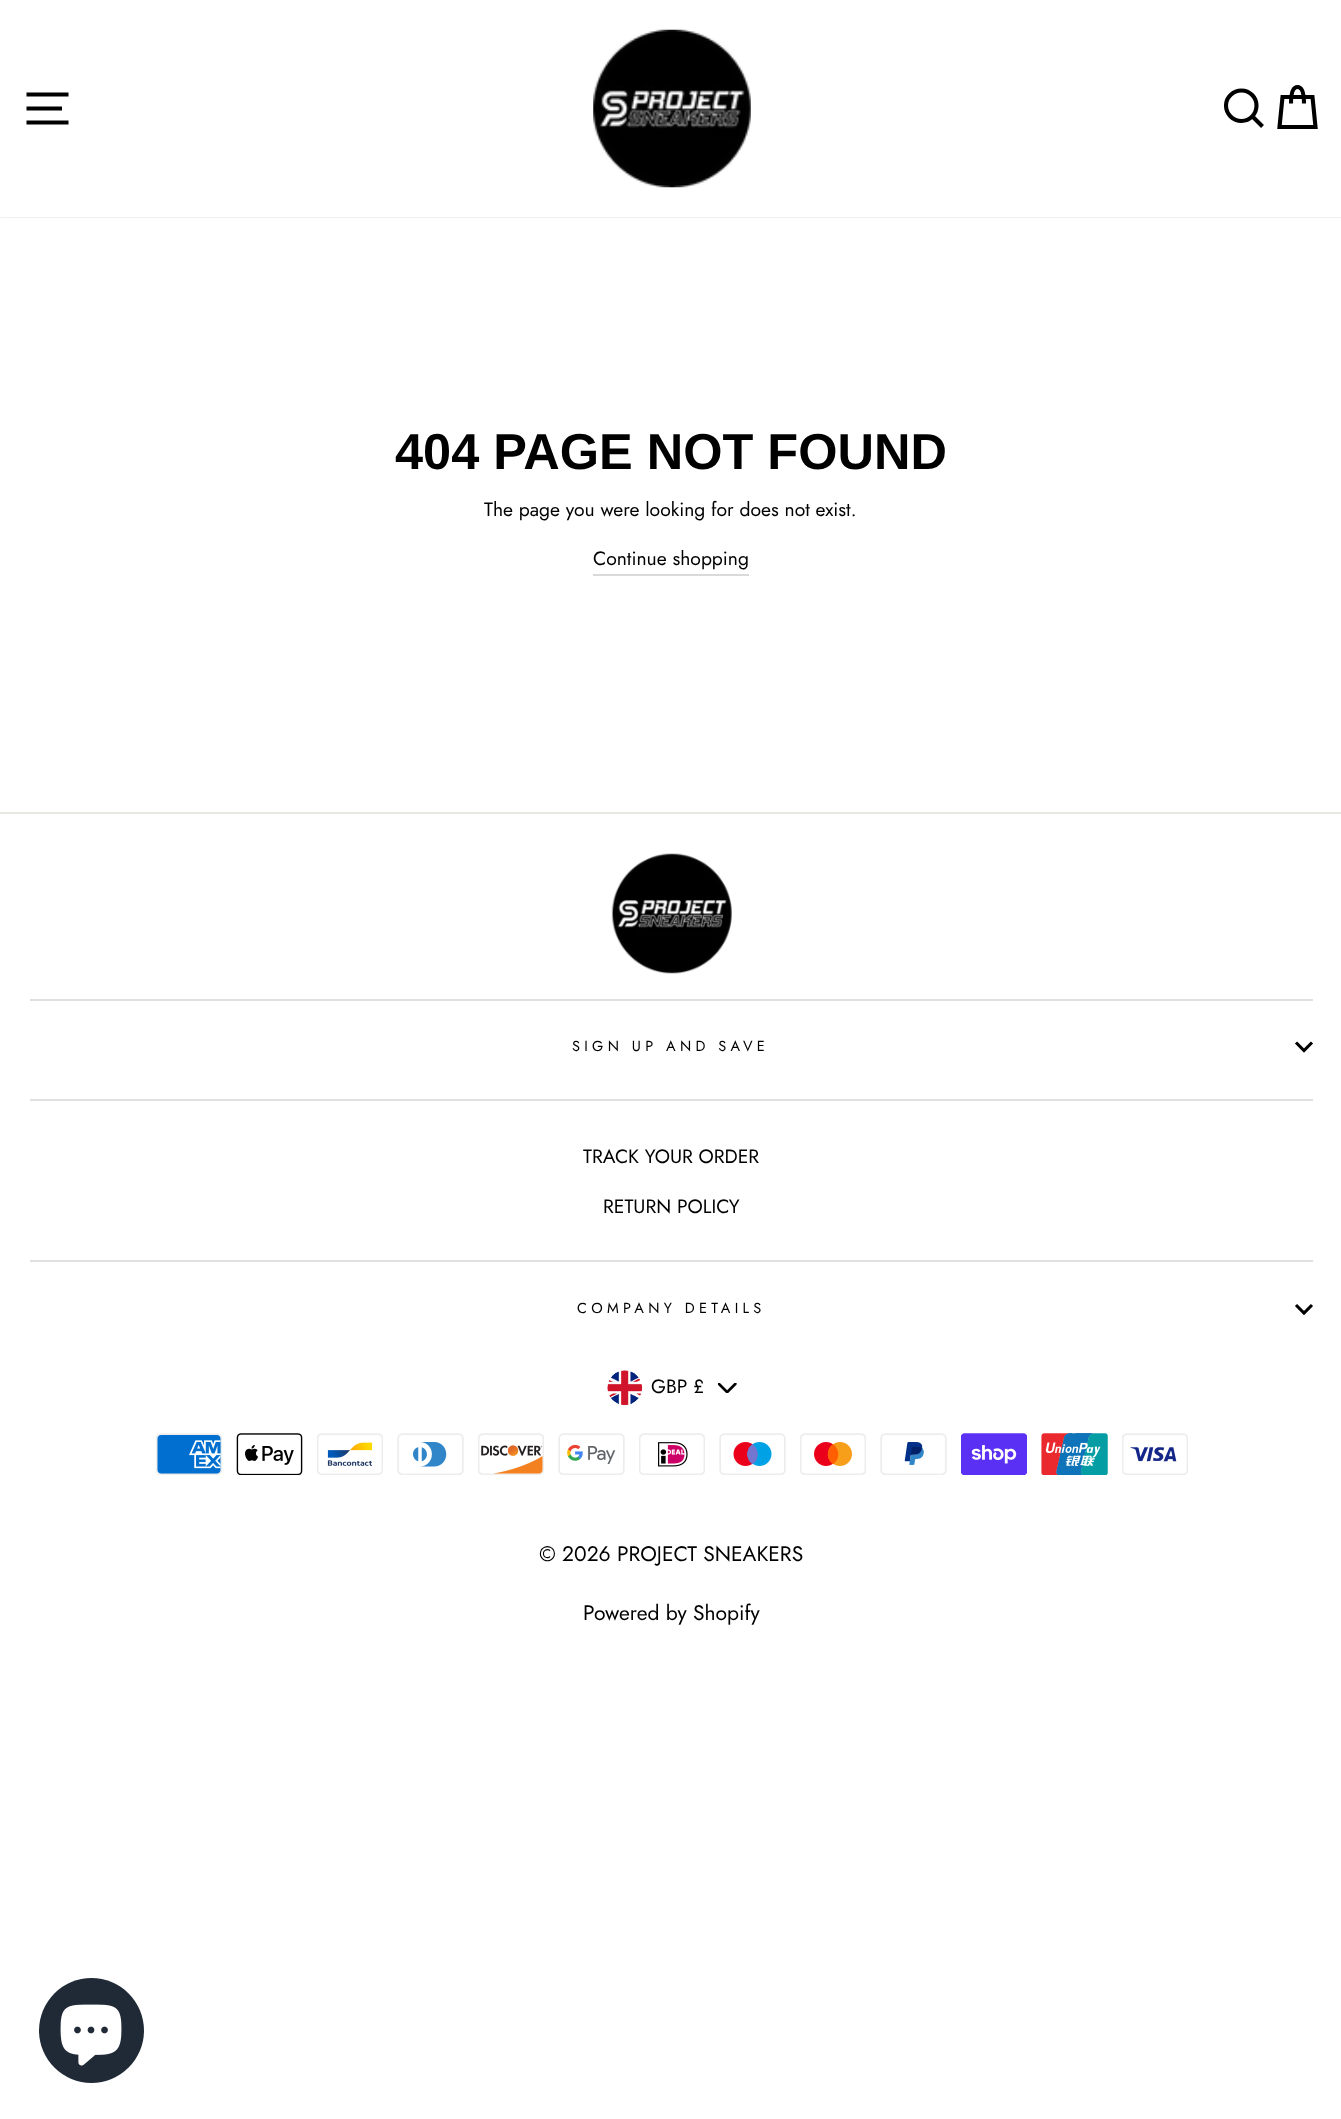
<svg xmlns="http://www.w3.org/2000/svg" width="1341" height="2119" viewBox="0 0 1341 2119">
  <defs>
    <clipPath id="clip1"><rect x="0" y="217" width="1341" height="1"/></clipPath>
    <filter id="blur1" x="-50%" y="-200%" width="200%" height="500%"><feGaussianBlur stdDeviation="1"/></filter>
  </defs>
  <rect width="100%" height="100%" fill="#ffffff"/>
  <g clip-path="url(#clip1)">
    <rect x="0" y="0" width="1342" height="217" fill="#000000" fill-opacity="0.2" filter="url(#blur1)"/>
  </g>
  <path d="M26.5 94.5H68.5M26.5 108.5H62M26.5 122.5H68.5" fill="none" stroke="#000000" stroke-width="4.1"/>
  <image x="593" y="29" width="158" height="159" href="img1.png"/>
  <path d="M1256.5 105.5C1256.5 114 1250 121 1241.5 121C1233 121 1226 114 1226 105.5C1226 97.5 1233 90.5 1241.5 90.5C1250 90.5 1256.5 97.5 1256.5 105.5ZM1262.5 126.5L1252.5 116.5" fill="none" stroke="#000000" stroke-width="4.1"/>
  <path d="M1291 103.5C1291 90.5 1294 87 1297.5 87C1301 87 1304 90.5 1304 103.5M1282.5 97H1312.5L1315.5 127H1279.5Z" fill="none" stroke="#000000" stroke-width="4.1"/>
  <text x="395" y="469" font-family="Liberation Sans" font-size="50.5" font-weight="bold" fill="#000000">404 PAGE NOT FOUND</text>
  <text x="484" y="516" font-family="Jost" font-size="19.3" fill="#000000">The page you were looking for does not exist.</text>
  <rect x="593" y="574" width="156" height="2" fill="#d9d9d9"/>
  <text x="593" y="565" font-family="Jost" font-size="19.3" fill="#000000">Continue shopping</text>
  <rect x="0" y="812" width="1341" height="2" fill="#e8e8e1"/>
  <image x="611" y="853" width="121" height="121" href="img2.png"/>
  <rect x="30" y="999" width="1283" height="2" fill="#e0e0e0"/>
  <text x="572" y="1051" font-family="Jost" font-size="14.5" letter-spacing="4.3" fill="#000000">SIGN UP AND SAVE</text>
  <path d="M1296 1042.5L1304 1050.5L1312 1042.5" fill="none" stroke="#000000" stroke-width="3.1"/>
  <rect x="30" y="1099" width="1283" height="2" fill="#e0e0e0"/>
  <text x="583" y="1163" font-family="Jost" font-size="19.3" fill="#000000">TRACK YOUR ORDER</text>
  <text x="603" y="1213" font-family="Jost" font-size="19.3" fill="#000000">RETURN POLICY</text>
  <rect x="30" y="1260" width="1283" height="2" fill="#e0e0e0"/>
  <text x="577" y="1313" font-family="Jost" font-size="14.5" letter-spacing="4.3" fill="#000000">COMPANY DETAILS</text>
  <path d="M1296 1305L1304 1313L1312 1305" fill="none" stroke="#000000" stroke-width="3.1"/>
  <image x="718" y="1383" width="19" height="10" href="img3.png"/>
  <image x="607" y="1370" width="36" height="36" href="img4.png"/>
  <text x="651" y="1393" font-family="Jost" font-size="19.3" fill="#000000">GBP £</text>
  <image x="156" y="1433" width="66" height="42" href="img5.png"/>
  <image x="236" y="1433" width="67" height="42" href="img6.png"/>
  <image x="317" y="1433" width="66" height="42" href="img7.png"/>
  <image x="397" y="1433" width="67" height="42" href="img8.png"/>
  <image x="478" y="1433" width="66" height="42" href="img9.png"/>
  <image x="558" y="1433" width="67" height="42" href="img10.png"/>
  <image x="639" y="1433" width="66" height="42" href="img11.png"/>
  <image x="719" y="1433" width="67" height="42" href="img12.png"/>
  <image x="800" y="1433" width="66" height="42" href="img13.png"/>
  <image x="880" y="1433" width="67" height="42" href="img14.png"/>
  <image x="961" y="1433" width="66" height="42" href="img15.png"/>
  <image x="1041" y="1433" width="67" height="42" href="img16.png"/>
  <image x="1122" y="1433" width="66" height="42" href="img17.png"/>
  <text x="539" y="1561" font-family="Jost" font-size="21" fill="#000000">© 2026 PROJECT SNEAKERS</text>
  <text x="583" y="1620" font-family="Jost" font-size="21" fill="#000000">Powered by Shopify</text>
  <circle cx="91.5" cy="2030.5" r="52.5" fill="#202a36"/>
  <image x="60" y="2004" width="62" height="62" href="img18.png"/>
</svg>
